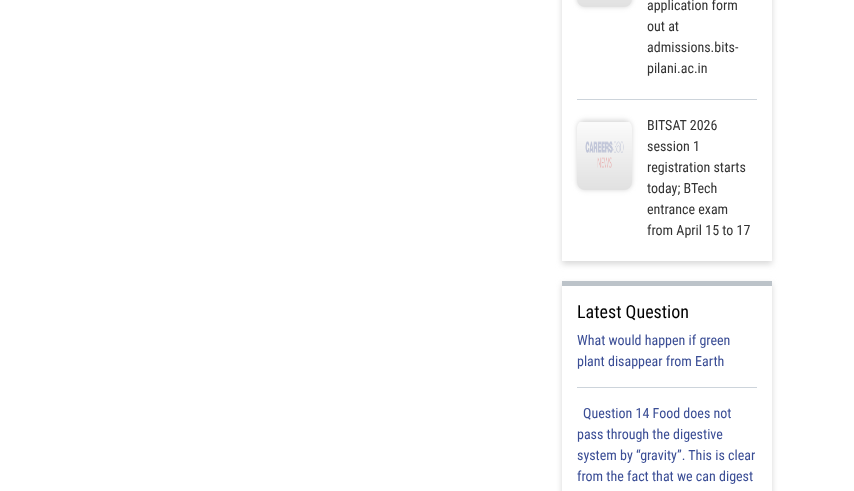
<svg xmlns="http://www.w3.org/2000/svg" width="854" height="491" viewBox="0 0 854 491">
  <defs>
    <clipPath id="clip1"><path d="M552 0H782V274H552ZM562-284H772V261H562Z" clip-rule="evenodd"/></clipPath>
    <filter id="blur1" x="-50%" y="-200%" width="200%" height="500%"><feGaussianBlur stdDeviation="3"/></filter>
    <filter id="blur2" x="-50%" y="-200%" width="200%" height="500%"><feGaussianBlur stdDeviation="2.5"/></filter>
    <clipPath id="clip2"><path d="M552 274H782V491H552ZM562 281H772V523H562Z" clip-rule="evenodd"/></clipPath>
  </defs>
  <rect width="100%" height="100%" fill="#ffffff"/>
  <g clip-path="url(#clip1)">
    <rect x="562" y="-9" width="210" height="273" fill="#d7d7d7" filter="url(#blur1)"/>
  </g>
  <rect x="577" y="99" width="180" height="1" fill="#cdd4db"/>
  <rect x="577" y="-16" width="55" height="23" rx="8" fill="#d7d7d7" filter="url(#blur2)"/>
  <image x="577" y="0" width="55" height="7" href="img1.png"/>
  <text x="647" y="10" font-family="Roboto Condensed" font-size="14" fill="#333333">application form</text>
  <text x="647" y="31" font-family="Roboto Condensed" font-size="14" fill="#333333">out at</text>
  <text x="647" y="52" font-family="Roboto Condensed" font-size="14" fill="#333333">admissions.bits-</text>
  <text x="647" y="73" font-family="Roboto Condensed" font-size="14" fill="#333333">pilani.ac.in</text>
  <rect x="577" y="120" width="55" height="70" rx="8" fill="#d7d7d7" filter="url(#blur2)"/>
  <image x="577" y="122" width="55" height="68" href="img2.png"/>
  <text x="647" y="130" font-family="Roboto Condensed" font-size="14" fill="#333333">BITSAT 2026</text>
  <text x="647" y="151" font-family="Roboto Condensed" font-size="14" fill="#333333">session 1</text>
  <text x="647" y="172" font-family="Roboto Condensed" font-size="14" fill="#333333">registration starts</text>
  <text x="647" y="193" font-family="Roboto Condensed" font-size="14" fill="#333333">today; BTech</text>
  <text x="647" y="214" font-family="Roboto Condensed" font-size="14" fill="#333333">entrance exam</text>
  <text x="647" y="235" font-family="Roboto Condensed" font-size="14" fill="#333333">from April 15 to 17</text>
  <g clip-path="url(#clip2)">
    <rect x="562" y="284" width="210" height="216" fill="#d7d7d7" filter="url(#blur1)"/>
  </g>
  <rect x="562" y="281" width="210" height="5" fill="#bcc3c9"/>
  <text x="577" y="318" font-family="Roboto Condensed" font-size="18" fill="#000000">Latest Question</text>
  <rect x="577" y="387" width="180" height="1" fill="#cdd4db"/>
  <text x="577" y="345" font-family="Roboto Condensed" font-size="14" fill="#3a4d95">What would happen if green</text>
  <text x="577" y="366" font-family="Roboto Condensed" font-size="14" fill="#3a4d95">plant disappear from Earth</text>
  <text x="583" y="418" font-family="Roboto Condensed" font-size="14" fill="#3a4d95">Question 14 Food does not</text>
  <text x="577" y="439" font-family="Roboto Condensed" font-size="14" fill="#3a4d95">pass through the digestive</text>
  <text x="577" y="460" font-family="Roboto Condensed" font-size="14" fill="#3a4d95">system by “gravity”. This is clear</text>
  <text x="577" y="481" font-family="Roboto Condensed" font-size="14" fill="#3a4d95">from the fact that we can digest</text>
</svg>
